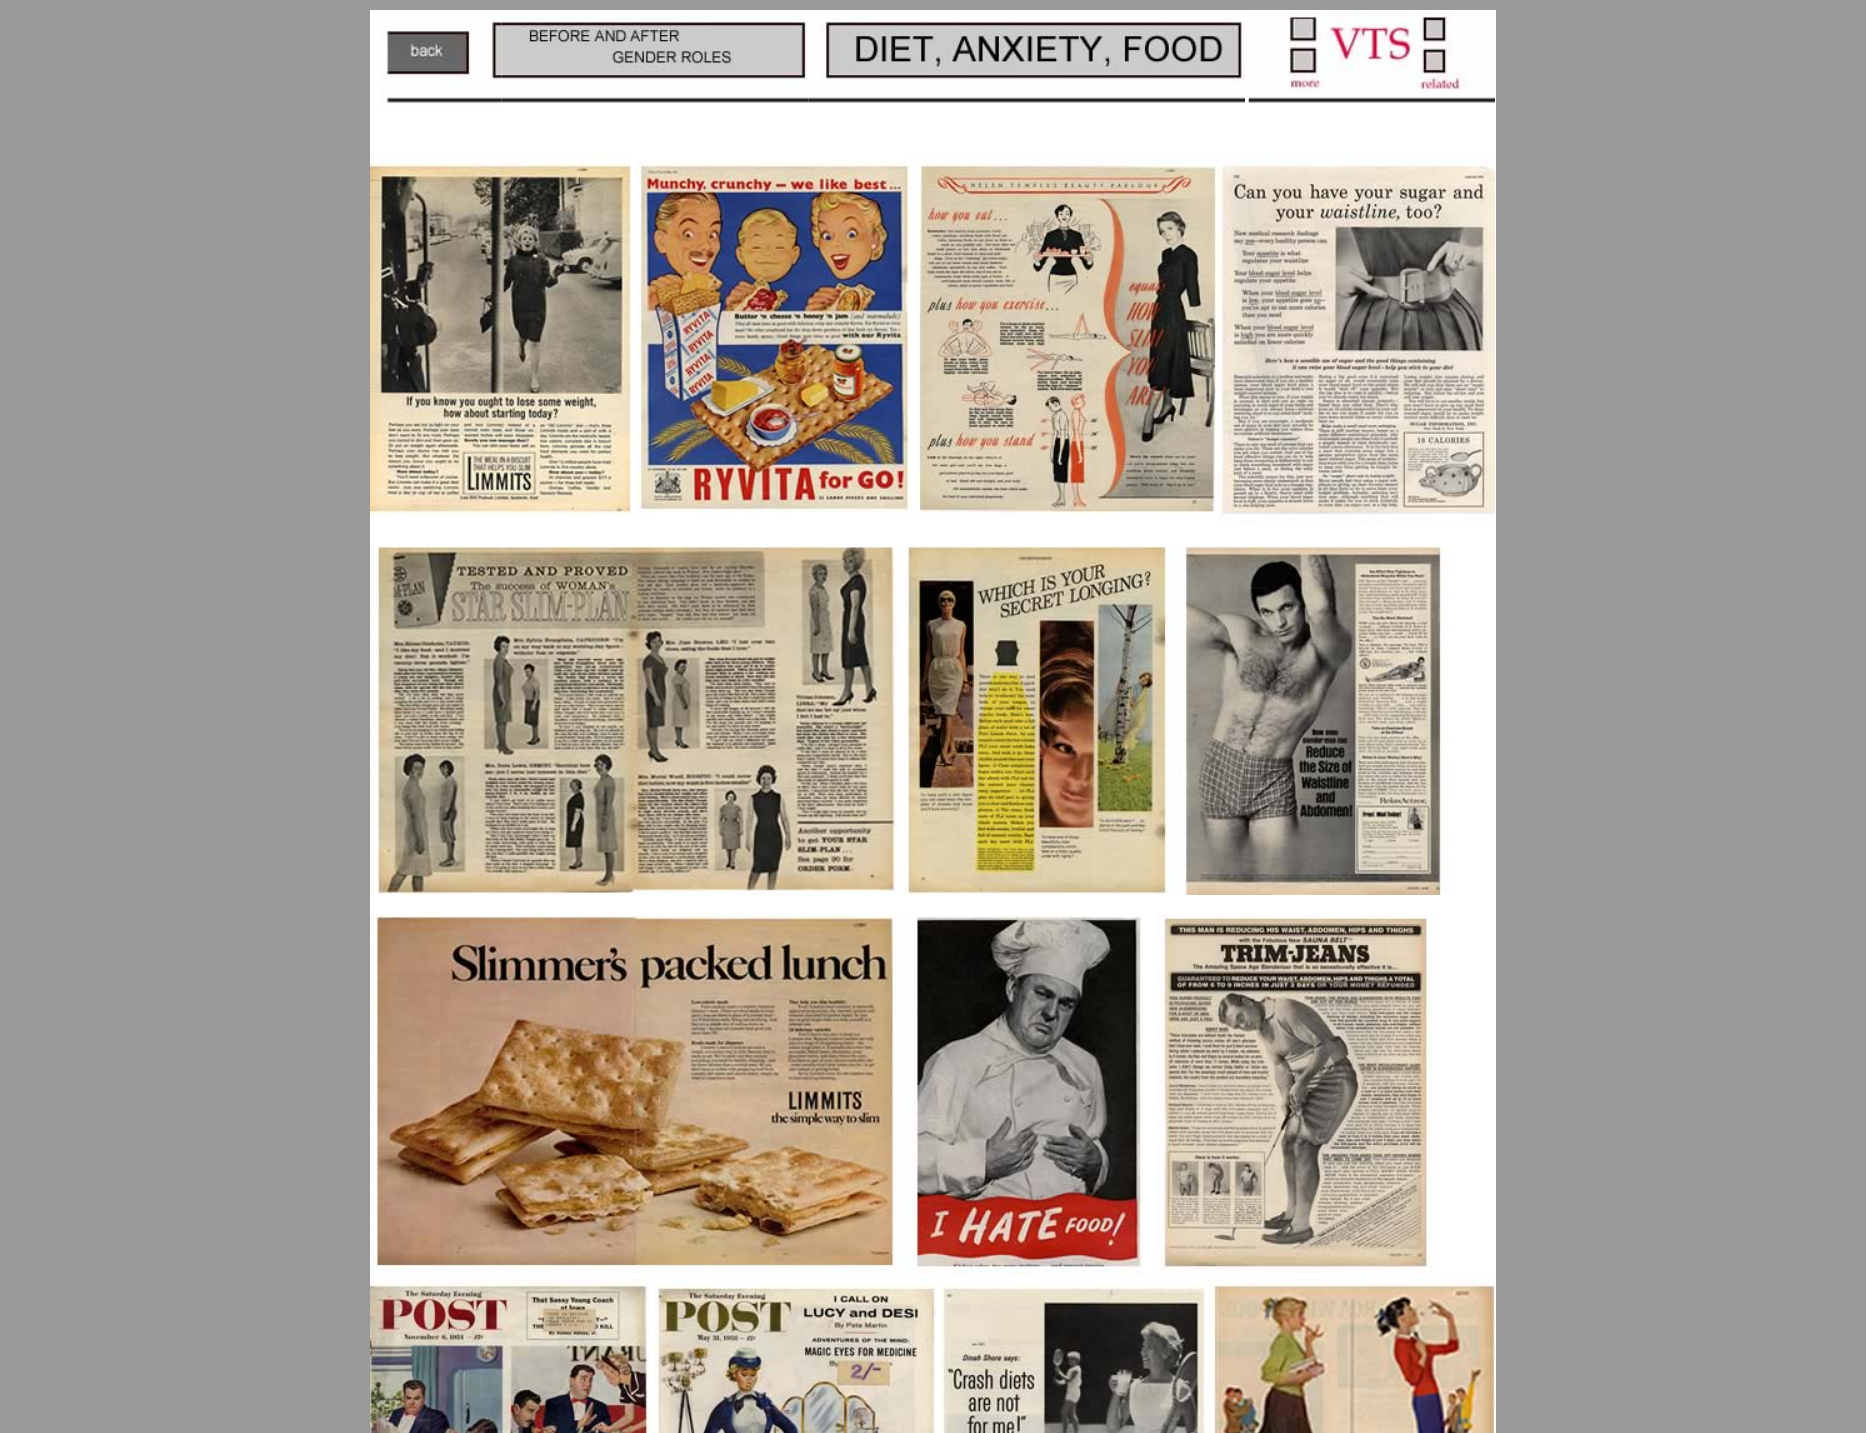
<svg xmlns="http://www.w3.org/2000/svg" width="1866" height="1433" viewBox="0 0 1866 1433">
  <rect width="100%" height="100%" fill="#999999"/>
  <rect x="370" y="10" width="1126" height="1423" fill="#ffffff"/>
  <image x="380" y="16" width="122" height="95" href="img1.png"/>
  <image x="501" y="16" width="308" height="87" href="img2.png"/>
  <image x="808" y="16" width="437" height="87" href="img3.png"/>
  <image x="1248" y="11" width="247" height="92" href="img4.png"/>
  <image x="370" y="153" width="262" height="361" href="img5.png"/>
  <image x="635" y="161" width="275" height="352" href="img6.png"/>
  <image x="910" y="153" width="308" height="361" href="img7.png"/>
  <image x="1217" y="153" width="278" height="369" href="img8.png"/>
  <image x="370" y="546" width="532" height="349" href="img9.png"/>
  <image x="902" y="546" width="267" height="349" href="img10.png"/>
  <image x="1169" y="546" width="280" height="349" href="img11.png"/>
  <image x="370" y="914" width="532" height="361" href="img12.png"/>
  <image x="902" y="915" width="241" height="361" href="img13.png"/>
  <image x="1156" y="914" width="280" height="361" href="img14.png"/>
  <image x="370" y="1277" width="281" height="156" href="img15.png"/>
  <image x="654" y="1277" width="282" height="156" href="img16.png"/>
  <image x="940" y="1278" width="278" height="155" href="img17.png"/>
  <image x="1217" y="1277" width="278" height="156" href="img18.png"/>
</svg>
